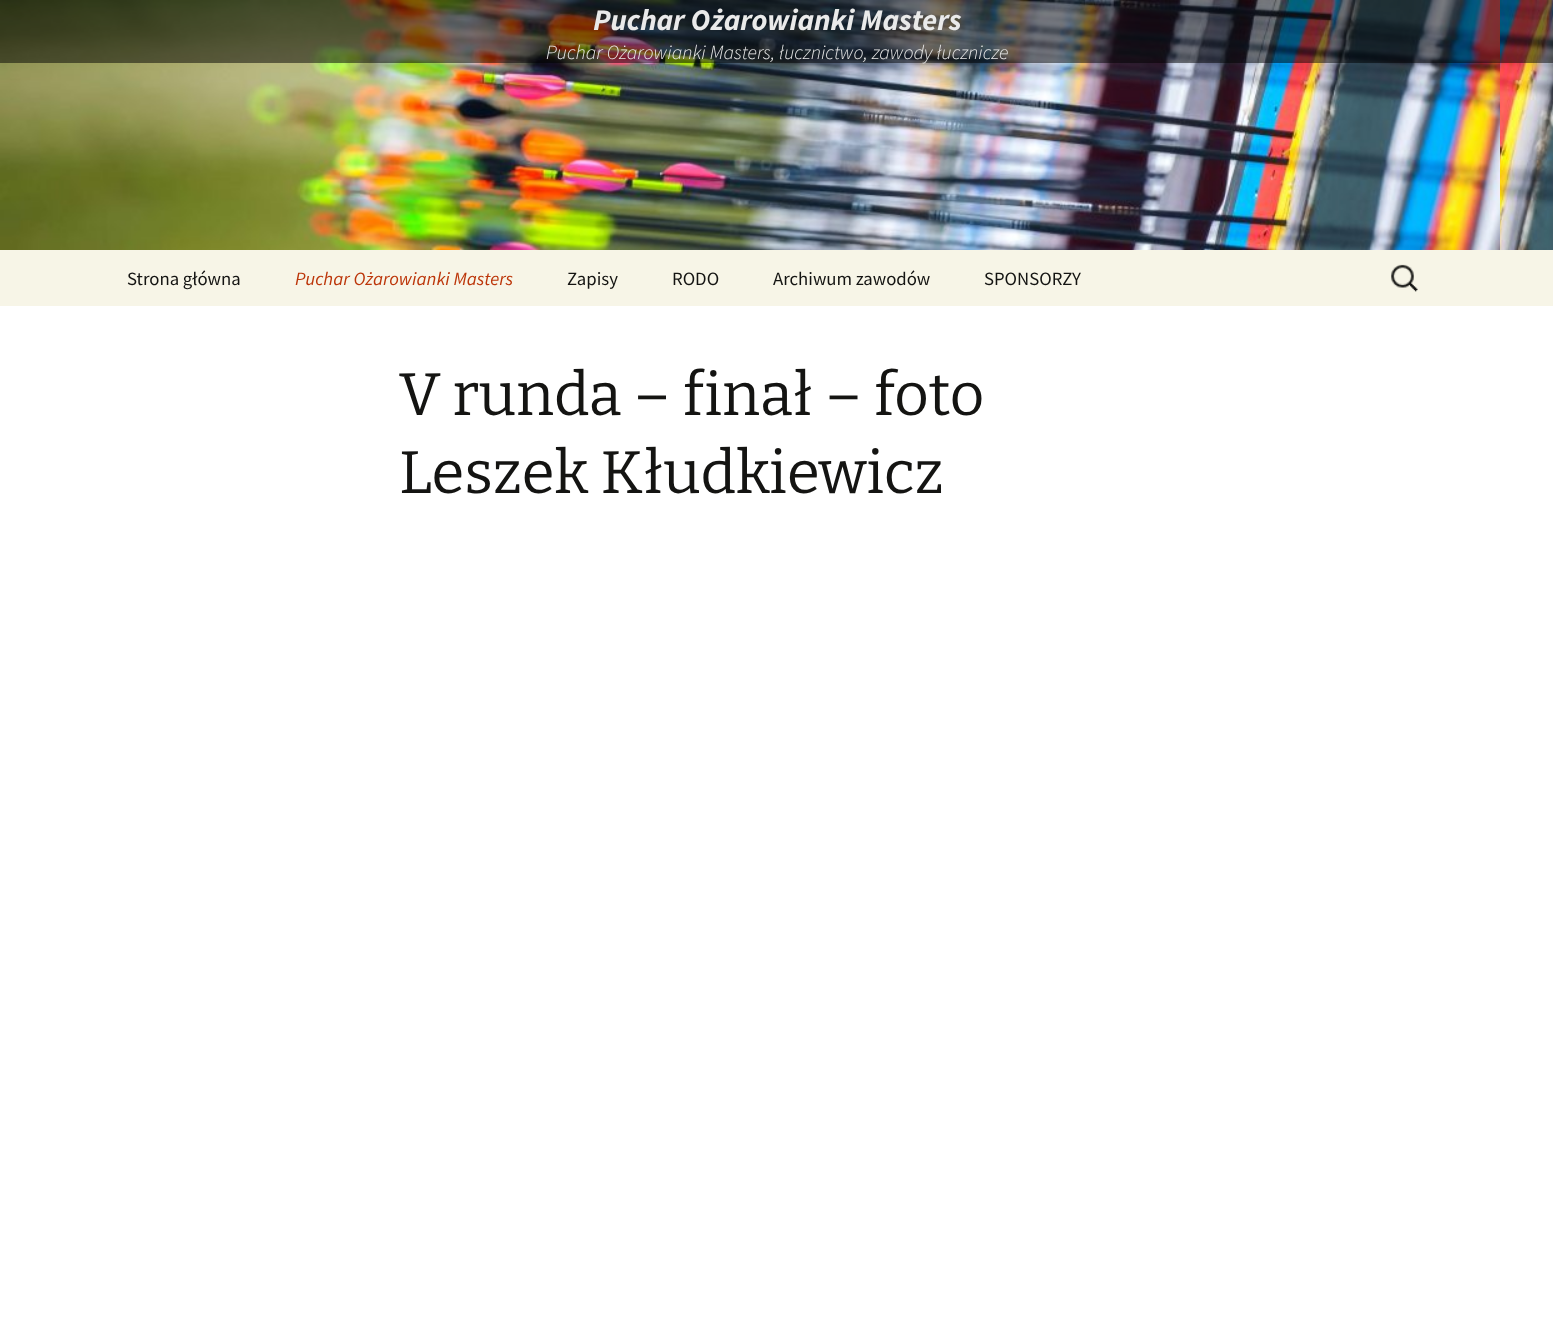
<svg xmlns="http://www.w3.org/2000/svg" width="1553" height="1343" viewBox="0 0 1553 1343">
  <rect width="100%" height="100%" fill="#ffffff"/>
  <image x="1500" y="0" width="53" height="250" href="img1.png"/>
  <image x="0" y="0" width="1500" height="250" href="img2.png"/>
  <rect x="0" y="0" width="1553" height="63" fill="#000000" fill-opacity="0.5"/>
  <text x="593" y="30" font-family="Source Sans Pro" font-size="30" font-weight="bold" font-style="italic" fill="#eaeaea">Puchar Ożarowianki Masters</text>
  <text x="546" y="59" font-family="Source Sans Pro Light" font-size="20" font-weight="300" font-style="italic" fill="#eaeaea">Puchar Ożarowianki Masters, łucznictwo, zawody łucznicze</text>
  <rect x="0" y="250" width="1553" height="56" fill="#f7f5e7"/>
  <text x="127" y="285" font-family="Source Sans Pro" font-size="18.75" fill="#141412">Strona główna</text>
  <text x="295" y="285" font-family="Source Sans Pro" font-size="18.75" font-style="italic" fill="#bc360a">Puchar Ożarowianki Masters</text>
  <text x="567" y="285" font-family="Source Sans Pro" font-size="18.75" fill="#141412">Zapisy</text>
  <text x="672" y="285" font-family="Source Sans Pro" font-size="18.75" fill="#141412">RODO</text>
  <text x="773" y="285" font-family="Source Sans Pro" font-size="18.75" fill="#141412">Archiwum zawodów</text>
  <text x="984" y="285" font-family="Source Sans Pro" font-size="18.75" fill="#141412">SPONSORZY</text>
  <image x="1391" y="264" width="27" height="28" href="img3.png"/>
  <text x="399" y="415" font-family="Bitter" font-size="60" fill="#141412">V runda – finał – foto</text>
  <text x="399" y="493" font-family="Bitter" font-size="60" fill="#141412">Leszek Kłudkiewicz</text>
</svg>
